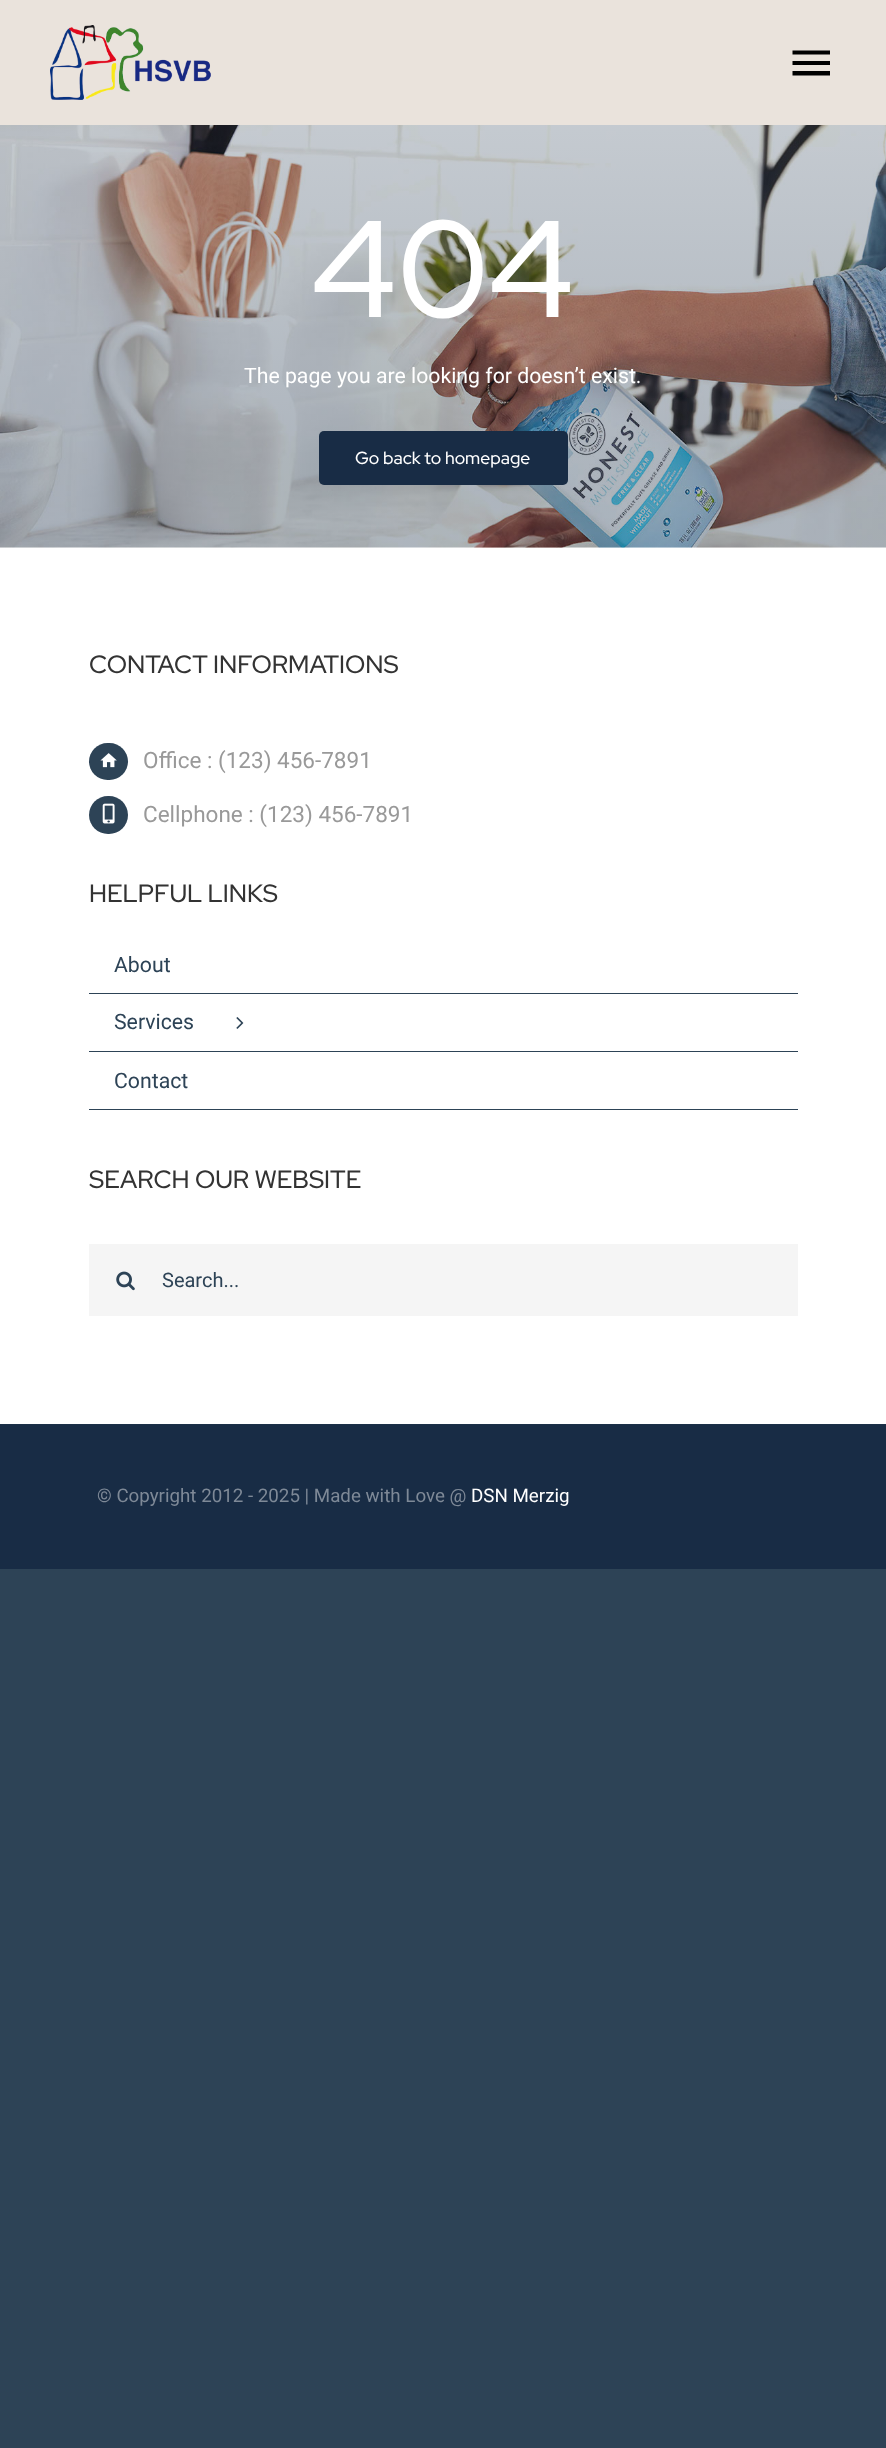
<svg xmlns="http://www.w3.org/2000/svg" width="886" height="2448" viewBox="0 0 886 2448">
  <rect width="100%" height="100%" fill="#2d4356"/>
  <rect x="0" y="547" width="886" height="877" fill="#ffffff"/>
  <rect x="0" y="0" width="886" height="125" fill="#eae3dc"/>
  <image x="50" y="25" width="161" height="75" href="img1.png"/>
  <path d="M792.5 50.5H830V54.5H792.5ZM792.5 65V61H830V65ZM792.5 75.5V71H830V75.5Z" fill="#000000"/>
  <image x="0" y="125" width="886" height="423" href="img2.png"/>
  <text x="311" y="317" font-family="Red Hat Display" font-size="137" font-weight="500" fill="#ffffff">404</text>
  <text x="244" y="383" font-family="Roboto" font-size="21.25" fill="#ffffff">The page you are looking for doesn’t exist.</text>
  <rect x="319" y="431" width="249" height="54" rx="5" fill="#182c45"/>
  <text x="355" y="464" font-family="Red Hat Display" font-size="17.5" font-weight="500" fill="#ffffff">Go back to homepage</text>
  <text x="89" y="673" font-family="Red Hat Display" font-size="25" font-weight="500" fill="#333333">CONTACT INFORMATIONS</text>
  <rect x="89" y="743" width="39" height="37" rx="18.5" fill="#2d4356"/>
  <image x="100" y="753" width="17" height="15" href="img3.png"/>
  <text x="143" y="768" font-family="Roboto" font-size="22.5" fill="#999999">Office : (123) 456-7891</text>
  <rect x="89" y="796" width="39" height="38" rx="19" fill="#2d4356"/>
  <image x="102" y="803" width="13" height="21" href="img4.png"/>
  <text x="143" y="822" font-family="Roboto" font-size="22.5" fill="#999999">Cellphone : (123) 456-7891</text>
  <text x="89" y="902" font-family="Red Hat Display" font-size="25" font-weight="500" fill="#333333">HELPFUL LINKS</text>
  <rect x="89" y="993" width="709" height="1" fill="#2d4356"/>
  <text x="114" y="972" font-family="Roboto" font-size="21.25" fill="#2d4356">About</text>
  <rect x="89" y="1051" width="709" height="1" fill="#2d4356"/>
  <text x="114" y="1029" font-family="Roboto" font-size="21.25" fill="#2d4356">Services</text>
  <image x="236" y="1017" width="8" height="12" href="img5.png"/>
  <rect x="89" y="1109" width="709" height="1" fill="#2d4356"/>
  <text x="114" y="1088" font-family="Roboto" font-size="21.25" fill="#2d4356">Contact</text>
  <text x="89" y="1188" font-family="Red Hat Display" font-size="25" font-weight="500" fill="#333333">SEARCH OUR WEBSITE</text>
  <rect x="89" y="1244" width="709" height="72" fill="#f5f5f5"/>
  <image x="116" y="1271" width="19" height="20" href="img6.png"/>
  <text x="162" y="1287" font-family="Roboto" font-size="20" fill="#2d4356">Search...</text>
  <rect x="0" y="1425" width="886" height="144" fill="#182c45"/>
  <rect x="0" y="1424" width="886" height="1" fill="#1b3048"/>
  <text x="97" y="1502" font-family="Roboto" font-size="18.75" fill="#7e8997">© Copyright 2012 - 2025 | Made with Love @</text>
  <text x="471" y="1502" font-family="Roboto" font-size="18.75" fill="#ffffff">DSN Merzig</text>
</svg>
